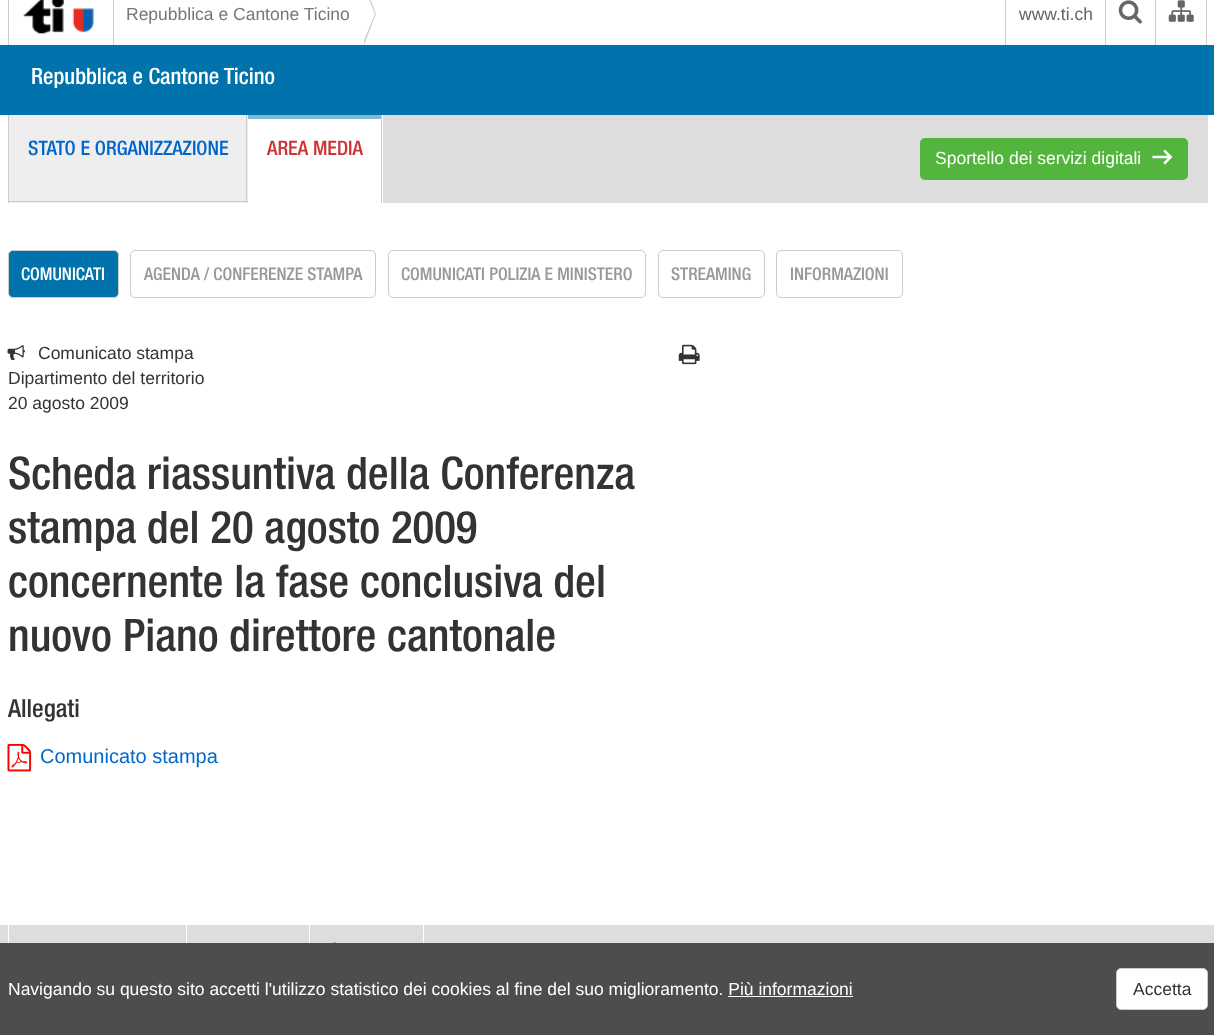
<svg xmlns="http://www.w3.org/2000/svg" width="1214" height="1035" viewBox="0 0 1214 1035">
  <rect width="100%" height="100%" fill="#ffffff"/>
  <rect x="113" y="0" width="1" height="45" fill="#cccccc"/>
  <rect x="8" y="0" width="1" height="45" fill="#cccccc"/>
  <image x="23" y="0" width="71" height="34" href="img1.png"/>
  <path d="M364 45V-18L376 14Z" fill="#cccccc"/>
  <path d="M362 45V-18L375 14Z" fill="#ffffff"/>
  <text x="126" y="20" font-family="Liberation Sans" font-size="17.5" fill="#777777">Repubblica e Cantone Ticino</text>
  <rect x="1206" y="0" width="1" height="45" fill="#cccccc"/>
  <rect x="1005" y="0" width="1" height="45" fill="#cccccc"/>
  <text x="1019" y="20" font-family="Liberation Sans" font-size="17.5" fill="#666666">www.ti.ch</text>
  <rect x="1105" y="0" width="1" height="45" fill="#cccccc"/>
  <image x="1118" y="0" width="24" height="24" href="img2.png"/>
  <rect x="1155" y="0" width="1" height="45" fill="#cccccc"/>
  <image x="1168" y="0" width="26" height="22" href="img3.png"/>
  <rect x="0" y="45" width="1214" height="70" fill="#0072ac"/>
  <text x="31" y="84" font-family="'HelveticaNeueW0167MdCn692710'" font-size="22.5" fill="#ffffff">Repubblica e Cantone Ticino</text>
  <rect x="383" y="115" width="825" height="88" fill="#dddddd"/>
  <rect x="8" y="115" width="1" height="88" fill="#cccccc"/>
  <rect x="9" y="115" width="239" height="88" fill="#eeeeee"/>
  <rect x="246" y="115" width="1" height="88" fill="#cccccc"/>
  <rect x="9" y="201" width="239" height="1" fill="#cccccc"/>
  <text x="28" y="155" font-family="'HelveticaNeueW0167MdCn692710'" font-size="20" fill="#0066cc">STATO E ORGANIZZAZIONE</text>
  <rect x="381" y="115" width="1" height="88" fill="#cccccc"/>
  <rect x="248" y="115" width="133" height="4" fill="#80b9d6"/>
  <text x="267" y="155" font-family="'HelveticaNeueW0167MdCn692710'" font-size="20" fill="#cc3333">AREA MEDIA</text>
  <rect x="920" y="138" width="268" height="42" rx="5" fill="#53b53d"/>
  <text x="935" y="164" font-family="Liberation Sans" font-size="17.5" fill="#ffffff">Sportello dei servizi digitali</text>
  <image x="1152" y="149" width="21" height="16" href="img4.png"/>
  <rect x="8.5" y="250.5" width="110" height="47" rx="4.5" fill="#0072ac" stroke="#cccccc"/>
  <text x="21" y="280" font-family="'HelveticaNeueW0167MdCn692710'" font-size="17.5" fill="#ffffff">COMUNICATI</text>
  <rect x="130.5" y="250.5" width="245" height="47" rx="4.5" fill="none" stroke="#cccccc"/>
  <text x="144" y="280" font-family="'HelveticaNeueW0167MdCn692710'" font-size="17.5" fill="#999999">AGENDA / CONFERENZE STAMPA</text>
  <rect x="388.5" y="250.5" width="257" height="47" rx="4.5" fill="none" stroke="#cccccc"/>
  <text x="401" y="280" font-family="'HelveticaNeueW0167MdCn692710'" font-size="17.5" fill="#999999">COMUNICATI POLIZIA E MINISTERO</text>
  <rect x="658.5" y="250.5" width="106" height="47" rx="4.5" fill="none" stroke="#cccccc"/>
  <text x="671" y="280" font-family="'HelveticaNeueW0167MdCn692710'" font-size="17.5" fill="#999999">STREAMING</text>
  <rect x="776.5" y="250.5" width="126" height="47" rx="4.5" fill="none" stroke="#cccccc"/>
  <text x="790" y="280" font-family="'HelveticaNeueW0167MdCn692710'" font-size="17.5" fill="#999999">INFORMAZIONI</text>
  <image x="7" y="345" width="18" height="15" href="img5.png"/>
  <text x="38" y="359" font-family="Liberation Sans" font-size="17.5" fill="#333333">Comunicato stampa</text>
  <text x="8" y="384" font-family="Liberation Sans" font-size="17.5" fill="#333333">Dipartimento del territorio</text>
  <text x="8" y="409" font-family="Liberation Sans" font-size="17.5" fill="#333333">20 agosto 2009</text>
  <image x="678" y="344" width="22" height="21" href="img6.png"/>
  <text x="8" y="489" font-family="'HelveticaNeueW0167MdCn692710'" font-size="45" fill="#333333">Scheda riassuntiva della Conferenza</text>
  <text x="8" y="543" font-family="'HelveticaNeueW0167MdCn692710'" font-size="45" fill="#333333">stampa del 20 agosto 2009</text>
  <text x="8" y="597" font-family="'HelveticaNeueW0167MdCn692710'" font-size="45" fill="#333333">concernente la fase conclusiva del</text>
  <text x="8" y="651" font-family="'HelveticaNeueW0167MdCn692710'" font-size="45" fill="#333333">nuovo Piano direttore cantonale</text>
  <text x="8" y="717" font-family="'HelveticaNeueW0167MdCn692710'" font-size="25" fill="#333333">Allegati</text>
  <image x="7" y="743" width="25" height="29" href="img7.png"/>
  <text x="40" y="763" font-family="Liberation Sans" font-size="20" fill="#0066cc">Comunicato stampa</text>
  <rect x="0" y="925" width="1214" height="18" fill="#dddddd"/>
  <rect x="186" y="925" width="1" height="18" fill="#ffffff"/>
  <rect x="8" y="925" width="1" height="18" fill="#ffffff"/>
  <rect x="309" y="925" width="1" height="18" fill="#ffffff"/>
  <rect x="423" y="925" width="1" height="18" fill="#ffffff"/>
  <image x="333" y="942" width="3" height="1" href="img8.png"/>
  <rect x="0" y="943" width="1214" height="92" fill="#4d4d4d"/>
  <text x="8" y="995" font-family="Liberation Sans" font-size="17.5" fill="#ffffff">Navigando su questo sito accetti l'utilizzo statistico dei cookies al fine del suo miglioramento. Più informazioni</text>
  <rect x="728" y="996" width="125" height="1" fill="#ffffff"/>
  <rect x="1116.5" y="968.5" width="91" height="41" rx="4.5" fill="#ffffff" stroke="#cccccc"/>
  <text x="1133" y="995" font-family="Liberation Sans" font-size="17.5" fill="#333333">Accetta</text>
</svg>
